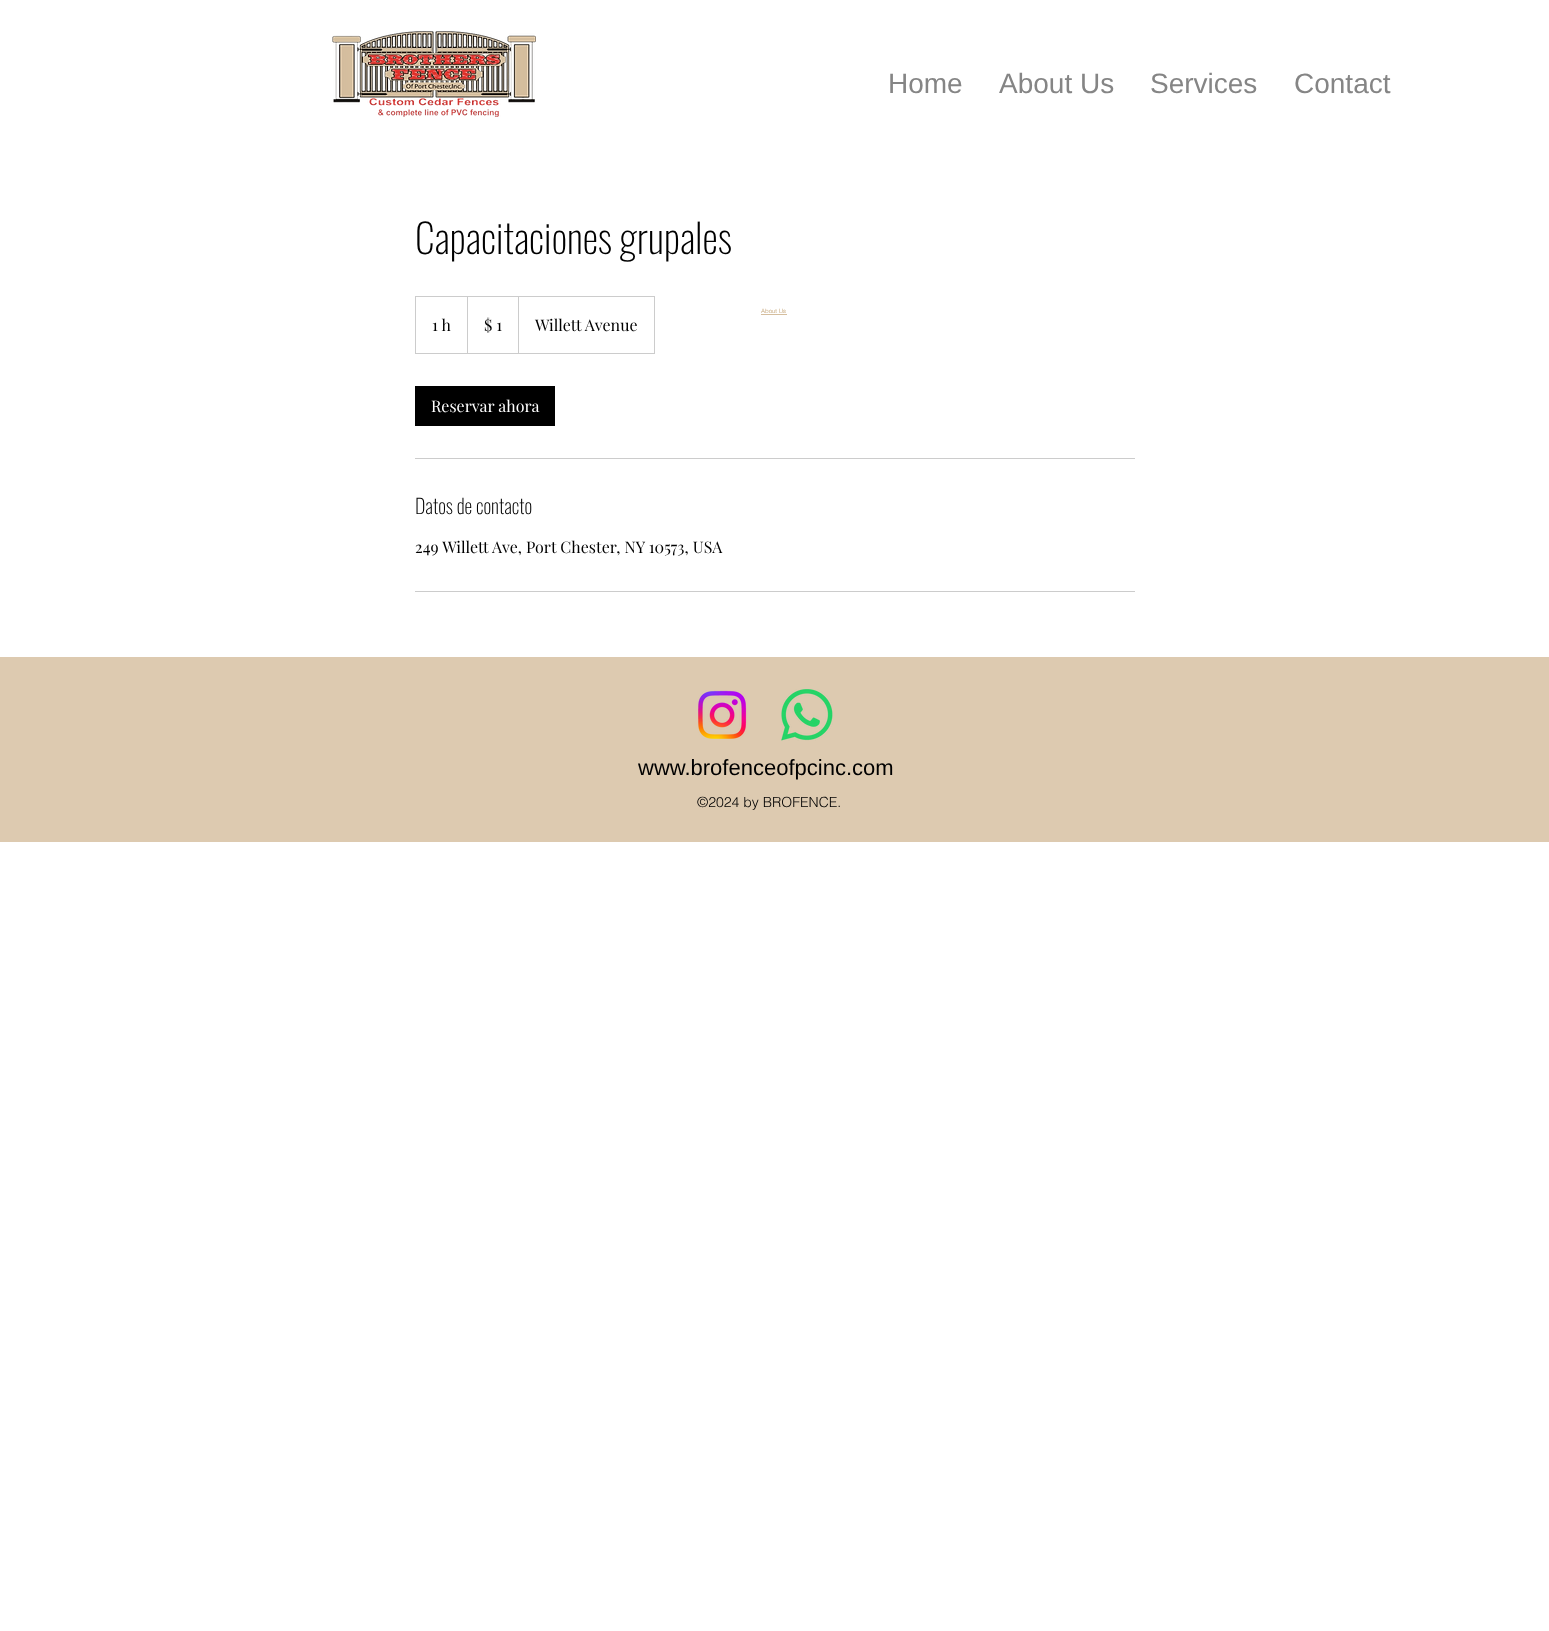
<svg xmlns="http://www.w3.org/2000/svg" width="1549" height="1631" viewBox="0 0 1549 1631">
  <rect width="100%" height="100%" fill="#ffffff"/>
  <image x="332" y="31" width="204" height="86" href="img1.png"/>
  <text x="888" y="93" font-family="Liberation Sans" font-size="28" fill="#858585">Home</text>
  <text x="999" y="93" font-family="Liberation Sans" font-size="28" fill="#858585">About Us</text>
  <text x="1150" y="93" font-family="Liberation Sans" font-size="28" fill="#858585">Services</text>
  <text x="1294" y="93" font-family="Liberation Sans" font-size="28" fill="#858585">Contact</text>
  <text x="415" y="254" font-family="Oswald" font-size="40" font-weight="200" fill="#000000">Capacitaciones grupales</text>
  <rect x="415.5" y="296.5" width="239" height="57" fill="none" stroke="#cccccc"/>
  <text x="432" y="331" font-family="Playfair Display" font-size="16" fill="#000000">1 h</text>
  <path d="M467 353V296L468 297V353Z" fill="#cccccc"/>
  <text x="484" y="331" font-family="Playfair Display" font-size="16" fill="#000000">$ 1</text>
  <path d="M518 353V296L519 297V353Z" fill="#cccccc"/>
  <text x="535" y="331" font-family="Playfair Display" font-size="16" fill="#000000">Willett Avenue</text>
  <rect x="415" y="386" width="140" height="40" fill="#000000"/>
  <text x="431" y="412" font-family="Playfair Display" font-size="16" fill="#ffffff">Reservar ahora</text>
  <rect x="415" y="458" width="720" height="1" fill="#cccccc"/>
  <text x="415" y="514" font-family="Oswald" font-size="20" font-weight="200" fill="#000000">Datos de contacto</text>
  <text x="415" y="553" font-family="Playfair Display" font-size="16" fill="#000000">249 Willett Ave, Port Chester, NY 10573, USA</text>
  <rect x="415" y="591" width="720" height="1" fill="#cccccc"/>
  <text x="761" y="313" font-family="helvetica" font-size="6" font-weight="300" fill="#d5be9e">About Us</text>
  <rect x="761" y="314" width="26" height="1" fill="#d5be9e"/>
  <text x="761" y="313" font-family="helvetica" font-size="6" font-weight="300" fill="#d5be9e">About Us</text>
  <rect x="0" y="657" width="1549" height="185" fill="#ddcab0"/>
  <image x="698" y="690" width="49" height="49" href="img2.png"/>
  <image x="781" y="689" width="52" height="52" href="img3.png"/>
  <text x="638" y="775" font-family="Liberation Sans" font-size="22" fill="#000000">www.brofenceofpcinc.com</text>
  <text x="697" y="807" font-family="helvetica" font-size="14" font-weight="300" fill="#000000">©2024 by BROFENCE.</text>
</svg>
